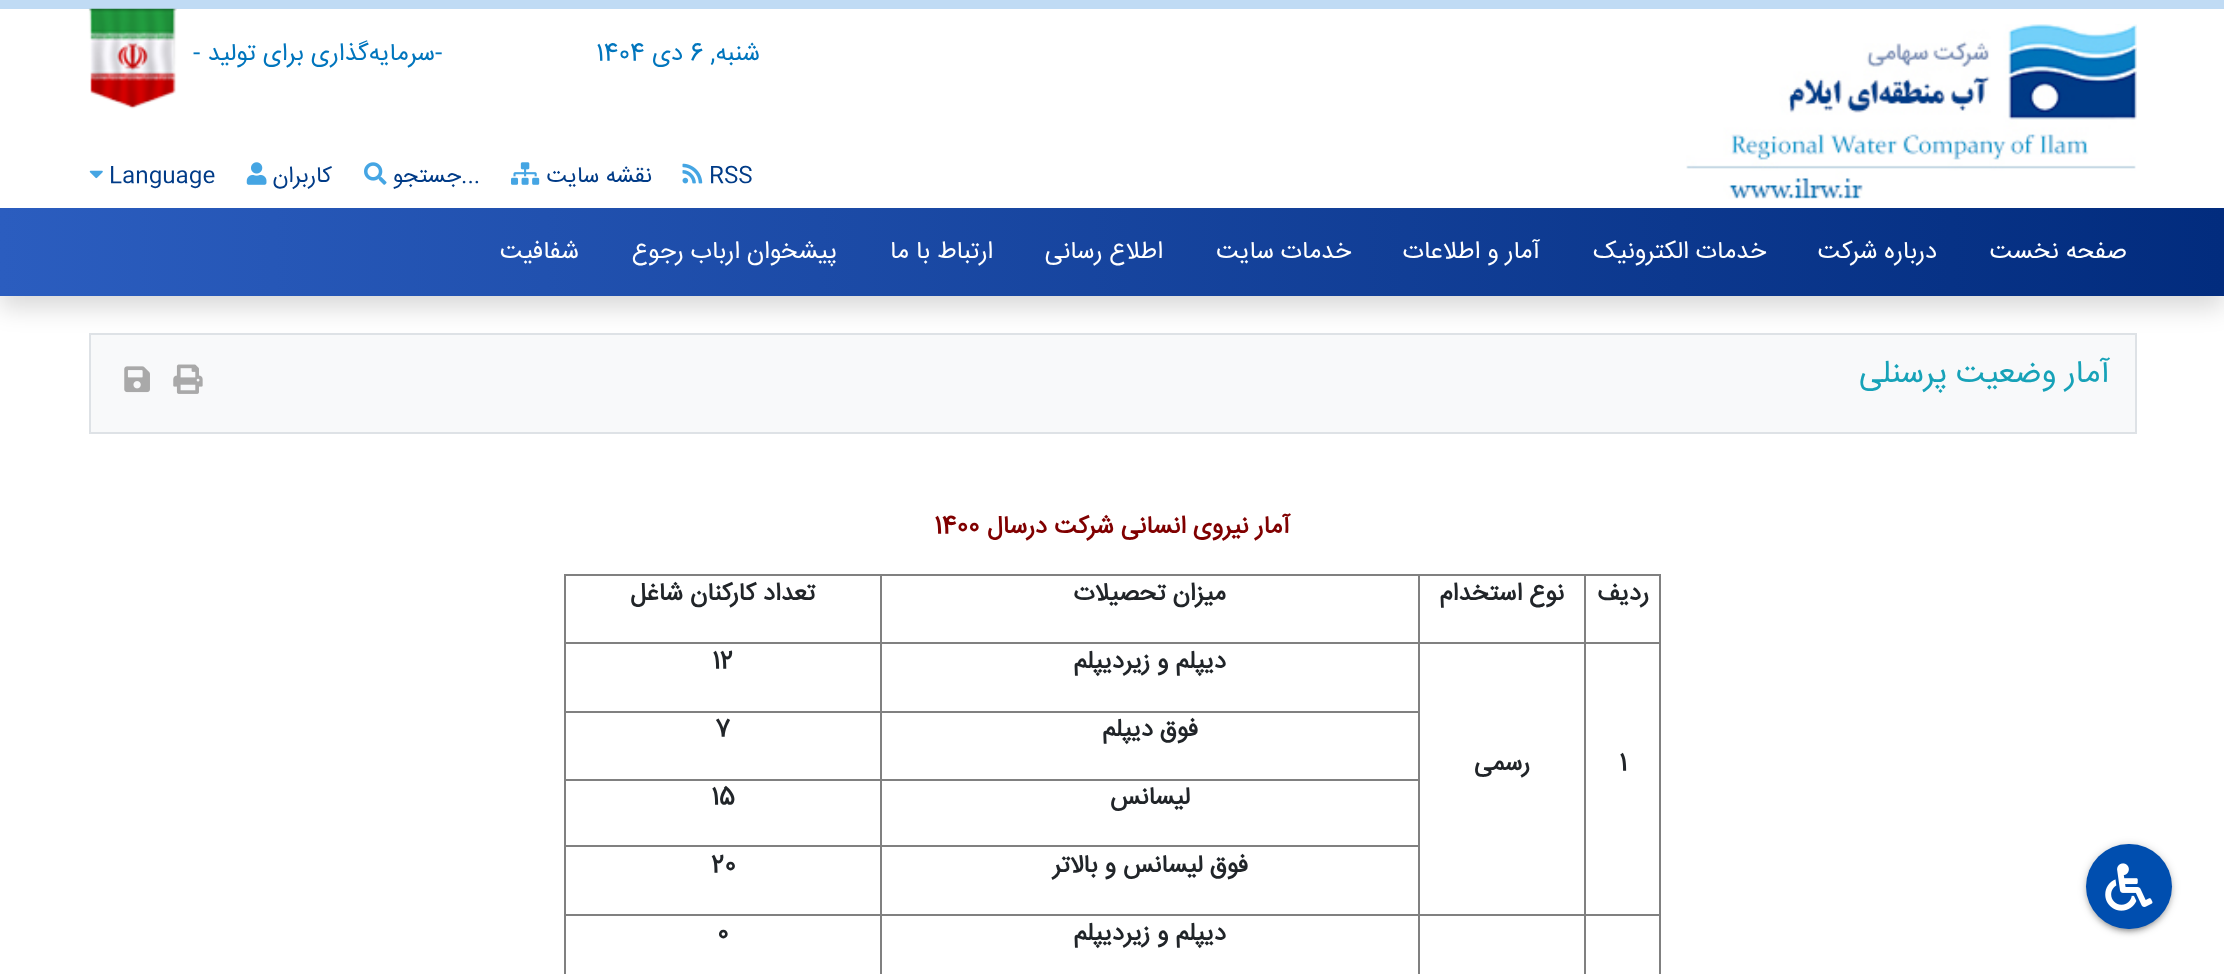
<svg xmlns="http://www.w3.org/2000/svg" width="2224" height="974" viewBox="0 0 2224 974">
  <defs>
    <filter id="blur1" x="-50%" y="-200%" width="200%" height="500%"><feGaussianBlur stdDeviation="4.5"/></filter>
    <filter id="blur2" x="-50%" y="-200%" width="200%" height="500%"><feGaussianBlur stdDeviation="1"/></filter>
    <filter id="blur3" x="-50%" y="-200%" width="200%" height="500%"><feGaussianBlur stdDeviation="2"/></filter>
    <filter id="blur4" x="-50%" y="-200%" width="200%" height="500%"><feGaussianBlur stdDeviation="12"/></filter>
    <linearGradient id="g1" gradientUnits="userSpaceOnUse" x1="0" y1="252" x2="2224" y2="252"><stop offset="0" stop-color="#2b5dbf"/><stop offset="1" stop-color="#022c7e"/></linearGradient>
  </defs>
  <rect width="100%" height="100%" fill="#ffffff"/>
  <rect x="2086" y="845" width="86" height="86" rx="43" fill="#000000" fill-opacity="0.2" filter="url(#blur1)"/>
  <rect x="2090" y="852" width="78" height="79" rx="39" fill="#000000" fill-opacity="0.12" filter="url(#blur2)"/>
  <rect x="2086" y="847" width="86" height="86" rx="43" fill="#000000" fill-opacity="0.14" filter="url(#blur3)"/>
  <rect x="2086" y="844" width="86" height="85" rx="42.5" fill="#004eaf"/>
  <image x="2105" y="863" width="48" height="48" href="img1.png"/>
  <rect x="90" y="334" width="2046" height="99" fill="#f8f9fa" stroke="#dee2e6" stroke-width="2"/>
  <rect x="0" y="12" width="2224" height="296" fill="#000000" fill-opacity="0.15" filter="url(#blur4)"/>
  <rect x="0" y="9" width="2224" height="199" fill="#ffffff"/>
  <rect x="0" y="0" width="2224" height="9" fill="#c0dbf4"/>
  <image x="1686" y="24" width="451" height="175" href="img2.png"/>
  <text x="760" y="60" font-family="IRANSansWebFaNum" font-size="24.5" direction="rtl" fill="#0075bd">شنبه,</text>
  <text x="690" y="60" font-family="IRANSansWebFaNum" font-size="24.5" fill="#0075bd">6</text>
  <text x="683" y="60" font-family="IRANSansWebFaNum" font-size="24.5" direction="rtl" fill="#0075bd">دی</text>
  <text x="596" y="60" font-family="IRANSansWebFaNum" font-size="24.5" fill="#0075bd">1404</text>
  <text x="435" y="60" font-family="IRANSansWebFaNum" font-size="24.5" fill="#0075bd">-</text>
  <text x="435" y="60" font-family="IRANSansWebFaNum" font-size="24.5" direction="rtl" fill="#0075bd">سرمایه‌گذاری برای تولید</text>
  <text x="193" y="60" font-family="IRANSansWebFaNum" font-size="24.5" fill="#0075bd">-</text>
  <image x="88" y="8" width="89" height="101" href="img3.png"/>
  <text x="709" y="182" font-family="IRANSansWebFaNum" font-size="22.5" fill="#003b87">RSS</text>
  <image x="682" y="163" width="21" height="21" href="img4.png"/>
  <text x="652" y="182" font-family="IRANSansWebFaNum" font-size="22.5" direction="rtl" fill="#003b87">نقشه سایت</text>
  <image x="511" y="162" width="29" height="23" href="img5.png"/>
  <text x="461" y="182" font-family="IRANSansWebFaNum" font-size="22.5" fill="#003b87">...</text>
  <text x="461" y="182" font-family="IRANSansWebFaNum" font-size="22.5" direction="rtl" fill="#003b87">جستجو</text>
  <image x="364" y="162" width="23" height="23" href="img6.png"/>
  <text x="332" y="182" font-family="IRANSansWebFaNum" font-size="22.5" direction="rtl" fill="#003b87">کاربران</text>
  <image x="246" y="162" width="21" height="23" href="img7.png"/>
  <text x="109" y="182" font-family="IRANSansWebFaNum" font-size="22.5" fill="#003b87">Language</text>
  <image x="89" y="170" width="14" height="9" href="img8.png"/>
  <rect x="0" y="208" width="2224" height="88" fill="url(#g1)"/>
  <text x="2127" y="258" font-family="IRANSansWebFaNum" font-size="24.5" direction="rtl" fill="#ffffff">صفحه نخست</text>
  <text x="1937" y="258" font-family="IRANSansWebFaNum" font-size="24.5" direction="rtl" fill="#ffffff">درباره شرکت</text>
  <text x="1766" y="258" font-family="IRANSansWebFaNum" font-size="24.5" direction="rtl" fill="#ffffff">خدمات الکترونیک</text>
  <text x="1540" y="258" font-family="IRANSansWebFaNum" font-size="24.5" direction="rtl" fill="#ffffff">آمار و اطلاعات</text>
  <text x="1351" y="258" font-family="IRANSansWebFaNum" font-size="24.5" direction="rtl" fill="#ffffff">خدمات سایت</text>
  <text x="1163" y="258" font-family="IRANSansWebFaNum" font-size="24.5" direction="rtl" fill="#ffffff">اطلاع رسانی</text>
  <text x="993" y="258" font-family="IRANSansWebFaNum" font-size="24.5" direction="rtl" fill="#ffffff">ارتباط با ما</text>
  <text x="837" y="258" font-family="IRANSansWebFaNum" font-size="24.5" direction="rtl" fill="#ffffff">پیشخوان ارباب رجوع</text>
  <text x="579" y="258" font-family="IRANSansWebFaNum" font-size="24.5" direction="rtl" fill="#ffffff">شفافیت</text>
  <text x="2110" y="382" font-family="IRANSansWebFaNum" font-size="31.75" direction="rtl" fill="#17a2b8">آمار وضعیت پرسنلی</text>
  <image x="173" y="364" width="30" height="30" href="img9.png"/>
  <image x="124" y="366" width="26" height="27" href="img10.png"/>
  <text x="1290" y="533" font-family="IRANSansWebFaNum" font-size="24.5" font-weight="bold" direction="rtl" fill="#800000">آمار نیروی انسانی شرکت</text>
  <text x="1047" y="533" font-family="IRANSansWebFaNum" font-size="24.5" font-weight="bold" direction="rtl" fill="#800000">درسال</text>
  <text x="934" y="533" font-family="IRANSansWebFaNum" font-size="24.5" font-weight="bold" fill="#800000">1400</text>
  <rect x="564" y="574" width="1097" height="2" fill="#808080"/>
  <rect x="1659" y="574" width="2" height="400" fill="#808080"/>
  <rect x="564" y="574" width="2" height="400" fill="#808080"/>
  <text x="1649" y="600" font-family="IRANSansWebFaNum" font-size="24.5" font-weight="bold" direction="rtl" fill="#212529">ردیف</text>
  <rect x="564" y="642" width="318" height="2" fill="#808080"/>
  <rect x="564" y="711" width="318" height="2" fill="#808080"/>
  <rect x="564" y="779" width="318" height="2" fill="#808080"/>
  <rect x="564" y="845" width="318" height="2" fill="#808080"/>
  <rect x="564" y="914" width="318" height="2" fill="#808080"/>
  <rect x="880" y="914" width="2" height="60" fill="#808080"/>
  <rect x="880" y="914" width="539" height="2" fill="#808080"/>
  <rect x="880" y="845" width="2" height="70" fill="#808080"/>
  <rect x="880" y="845" width="539" height="2" fill="#808080"/>
  <rect x="880" y="779" width="2" height="68" fill="#808080"/>
  <rect x="880" y="779" width="539" height="2" fill="#808080"/>
  <rect x="880" y="711" width="2" height="70" fill="#808080"/>
  <rect x="880" y="711" width="539" height="2" fill="#808080"/>
  <rect x="880" y="642" width="2" height="70" fill="#808080"/>
  <rect x="880" y="642" width="539" height="2" fill="#808080"/>
  <rect x="1418" y="914" width="2" height="60" fill="#808080"/>
  <rect x="1418" y="914" width="168" height="2" fill="#808080"/>
  <rect x="1418" y="845" width="2" height="70" fill="#808080"/>
  <rect x="1418" y="779" width="2" height="68" fill="#808080"/>
  <rect x="1418" y="711" width="2" height="70" fill="#808080"/>
  <rect x="1418" y="642" width="2" height="70" fill="#808080"/>
  <rect x="1418" y="642" width="168" height="2" fill="#808080"/>
  <rect x="1584" y="914" width="2" height="60" fill="#808080"/>
  <rect x="1584" y="914" width="77" height="2" fill="#808080"/>
  <rect x="1584" y="642" width="2" height="273" fill="#808080"/>
  <rect x="1584" y="642" width="77" height="2" fill="#808080"/>
  <rect x="1584" y="574" width="2" height="70" fill="#808080"/>
  <text x="1564" y="600" font-family="IRANSansWebFaNum" font-size="24.5" font-weight="bold" direction="rtl" fill="#212529">نوع استخدام</text>
  <rect x="1418" y="574" width="2" height="70" fill="#808080"/>
  <text x="1226" y="600" font-family="IRANSansWebFaNum" font-size="24.5" font-weight="bold" direction="rtl" fill="#212529">میزان تحصیلات</text>
  <rect x="880" y="574" width="2" height="70" fill="#808080"/>
  <text x="815" y="600" font-family="IRANSansWebFaNum" font-size="24.5" font-weight="bold" direction="rtl" fill="#212529">تعداد کارکنان شاغل</text>
  <text x="1226" y="668" font-family="IRANSansWebFaNum" font-size="24.5" font-weight="bold" direction="rtl" fill="#212529">دیپلم و زیردیپلم</text>
  <text x="712" y="668" font-family="IRANSansWebFaNum" font-size="24.5" font-weight="bold" fill="#212529">12</text>
  <text x="1619" y="770" font-family="IRANSansWebFaNum" font-size="24.5" font-weight="bold" fill="#212529">1</text>
  <text x="1530" y="770" font-family="IRANSansWebFaNum" font-size="24.5" font-weight="bold" direction="rtl" fill="#212529">رسمی</text>
  <text x="1198" y="736" font-family="IRANSansWebFaNum" font-size="24.5" font-weight="bold" direction="rtl" fill="#212529">فوق دیپلم</text>
  <text x="715" y="736" font-family="IRANSansWebFaNum" font-size="24.5" font-weight="bold" fill="#212529">7</text>
  <text x="1190" y="804" font-family="IRANSansWebFaNum" font-size="24.5" font-weight="bold" direction="rtl" fill="#212529">لیسانس</text>
  <text x="711" y="804" font-family="IRANSansWebFaNum" font-size="24.5" font-weight="bold" fill="#212529">15</text>
  <text x="1248" y="872" font-family="IRANSansWebFaNum" font-size="24.5" font-weight="bold" direction="rtl" fill="#212529">فوق لیسانس و بالاتر</text>
  <text x="711" y="872" font-family="IRANSansWebFaNum" font-size="24.5" font-weight="bold" fill="#212529">20</text>
  <text x="1226" y="940" font-family="IRANSansWebFaNum" font-size="24.5" font-weight="bold" direction="rtl" fill="#212529">دیپلم و زیردیپلم</text>
  <text x="717" y="940" font-family="IRANSansWebFaNum" font-size="24.5" font-weight="bold" fill="#212529">0</text>
</svg>
